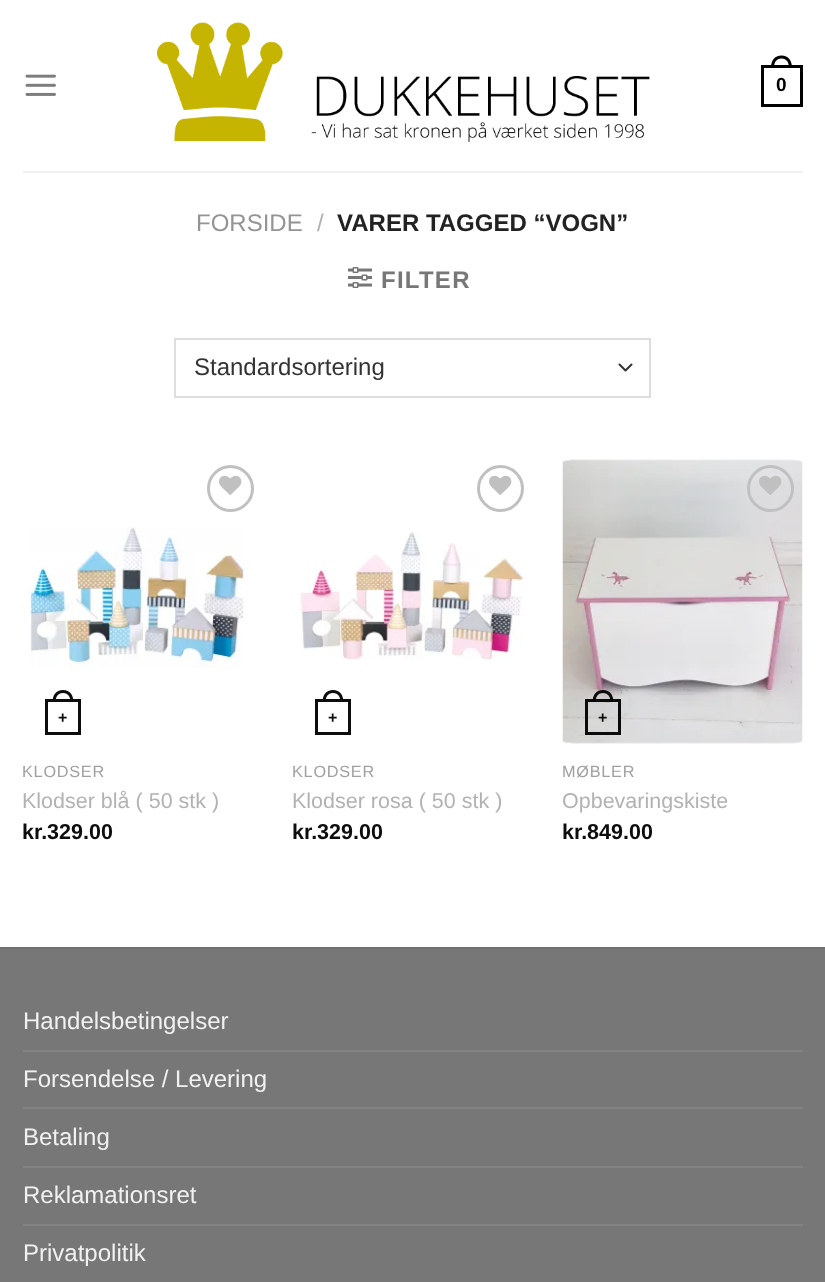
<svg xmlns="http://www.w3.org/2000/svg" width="825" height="1282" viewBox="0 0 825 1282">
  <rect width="100%" height="100%" fill="#ffffff"/>
  <image x="25" y="74" width="31" height="22" href="img1.png"/>
  <image x="157" y="22" width="493" height="121" href="img2.png"/>
  <rect x="762.5" y="66.5" width="39" height="39" fill="none" stroke="#000000" stroke-width="3"/>
  <path d="M781.5 55.5C788.5 55.5 792 61 792 67.5H771C771 61 774.5 55.5 781.5 55.5ZM781.5 58.5C787 58.5 789 63 789 67.5H774C774 63 776 58.5 781.5 58.5Z" fill="#000000" fill-rule="evenodd"/>
  <text x="776" y="91" font-family="Liberation Sans" font-size="19" font-weight="bold" fill="#000000">0</text>
  <rect x="23" y="171" width="780" height="2" fill="#f1f1f1"/>
  <text x="196" y="231" font-family="Liberation Sans" font-size="24" fill="#949494">FORSIDE</text>
  <text x="317" y="231" font-family="Liberation Sans" font-size="24" fill="#b2b2b2">/</text>
  <text x="337" y="231" font-family="Liberation Sans" font-size="24" font-weight="bold" fill="#222222">VARER TAGGED “VOGN”</text>
  <image x="348" y="267" width="24" height="21" href="img3.png"/>
  <text x="381" y="288" font-family="Liberation Sans" font-size="24" font-weight="bold" letter-spacing="1.25" fill="#777777">FILTER</text>
  <path d="M619.5 364.5L625.5 370.5L631.5 364.5" fill="none" stroke="#333333" stroke-width="2" stroke-linecap="round" stroke-linejoin="round"/>
  <rect x="175" y="339" width="475" height="58" fill="none" stroke="#dddddd" stroke-width="2"/>
  <text x="194" y="375" font-family="Liberation Sans" font-size="24" fill="#333333">Standardsortering</text>
  <circle cx="230.5" cy="488.5" r="22" fill="none" stroke="#c0c0c0" stroke-width="3"/>
  <image x="219" y="475" width="23" height="20" href="img4.png"/>
  <image x="30" y="527" width="218" height="141" href="img5.png"/>
  <rect x="46.5" y="700.5" width="33" height="33" fill="none" stroke="#0d0d0d" stroke-width="3"/>
  <path d="M63 690C70 690 73.5 695.5 73.5 702H52.5C52.5 695.5 56 690 63 690ZM63 693C68.5 693 70.5 697.5 70.5 702H55.5C55.5 697.5 57.5 693 63 693Z" fill="#0d0d0d" fill-rule="evenodd"/>
  <text x="58" y="723" font-family="Liberation Sans" font-size="16" font-weight="bold" fill="#0d0d0d">+</text>
  <text x="22" y="777" font-family="Liberation Sans" font-size="16.25" letter-spacing="0.75" fill="#a0a0a0">KLODSER</text>
  <text x="22" y="808" font-family="Liberation Sans" font-size="21.5" fill="#b2b2b2">Klodser blå ( 50 stk )</text>
  <text x="22" y="839" font-family="Liberation Sans" font-size="21.5" font-weight="bold" fill="#0d0d0d">kr.329.00</text>
  <circle cx="500.5" cy="488.5" r="22" fill="none" stroke="#c0c0c0" stroke-width="3"/>
  <image x="489" y="475" width="23" height="20" href="img4.png"/>
  <image x="300" y="532" width="224" height="128" href="img6.png"/>
  <rect x="316.5" y="700.5" width="33" height="33" fill="none" stroke="#0d0d0d" stroke-width="3"/>
  <path d="M333 690C340 690 343.5 695.5 343.5 702H322.5C322.5 695.5 326 690 333 690ZM333 693C338.5 693 340.5 697.5 340.5 702H325.5C325.5 697.5 327.5 693 333 693Z" fill="#0d0d0d" fill-rule="evenodd"/>
  <text x="328" y="723" font-family="Liberation Sans" font-size="16" font-weight="bold" fill="#0d0d0d">+</text>
  <text x="292" y="777" font-family="Liberation Sans" font-size="16.25" letter-spacing="0.75" fill="#a0a0a0">KLODSER</text>
  <text x="292" y="808" font-family="Liberation Sans" font-size="21.5" fill="#b2b2b2">Klodser rosa ( 50 stk )</text>
  <text x="292" y="839" font-family="Liberation Sans" font-size="21.5" font-weight="bold" fill="#0d0d0d">kr.329.00</text>
  <image x="562" y="459" width="241" height="285" href="img7.png"/>
  <circle cx="770.5" cy="488.5" r="22" fill="none" stroke="#c0c0c0" stroke-width="3"/>
  <image x="759" y="475" width="23" height="20" href="img8.png"/>
  <rect x="586.5" y="700.5" width="33" height="33" fill="none" stroke="#000000" stroke-opacity="0.95" stroke-width="3"/>
  <path d="M603 690C610 690 613.5 695.5 613.5 702H592.5C592.5 695.5 596 690 603 690ZM603 693C608.5 693 610.5 697.5 610.5 702H595.5C595.5 697.5 597.5 693 603 693Z" fill="#000000" fill-opacity="0.95" fill-rule="evenodd"/>
  <text x="598" y="723" font-family="Liberation Sans" font-size="16" font-weight="bold" fill="#0d0d0d">+</text>
  <text x="562" y="777" font-family="Liberation Sans" font-size="16.25" letter-spacing="0.75" fill="#a0a0a0">MØBLER</text>
  <text x="562" y="808" font-family="Liberation Sans" font-size="21.5" fill="#b2b2b2">Opbevaringskiste</text>
  <text x="562" y="839" font-family="Liberation Sans" font-size="21.5" font-weight="bold" fill="#0d0d0d">kr.849.00</text>
  <rect x="0" y="949" width="825" height="333" fill="#777777"/>
  <rect x="0" y="947" width="825" height="2" fill="#717171"/>
  <text x="23" y="1029" font-family="Liberation Sans" font-size="24" fill="#f1f1f1">Handelsbetingelser</text>
  <rect x="23" y="1050" width="780" height="2" fill="#828282"/>
  <text x="23" y="1087" font-family="Liberation Sans" font-size="24" fill="#f1f1f1">Forsendelse / Levering</text>
  <rect x="23" y="1107" width="780" height="2" fill="#828282"/>
  <text x="23" y="1145" font-family="Liberation Sans" font-size="24" fill="#f1f1f1">Betaling</text>
  <rect x="23" y="1166" width="780" height="2" fill="#828282"/>
  <text x="23" y="1203" font-family="Liberation Sans" font-size="24" fill="#f1f1f1">Reklamationsret</text>
  <rect x="23" y="1224" width="780" height="2" fill="#828282"/>
  <text x="23" y="1261" font-family="Liberation Sans" font-size="24" fill="#f1f1f1">Privatpolitik</text>
</svg>
